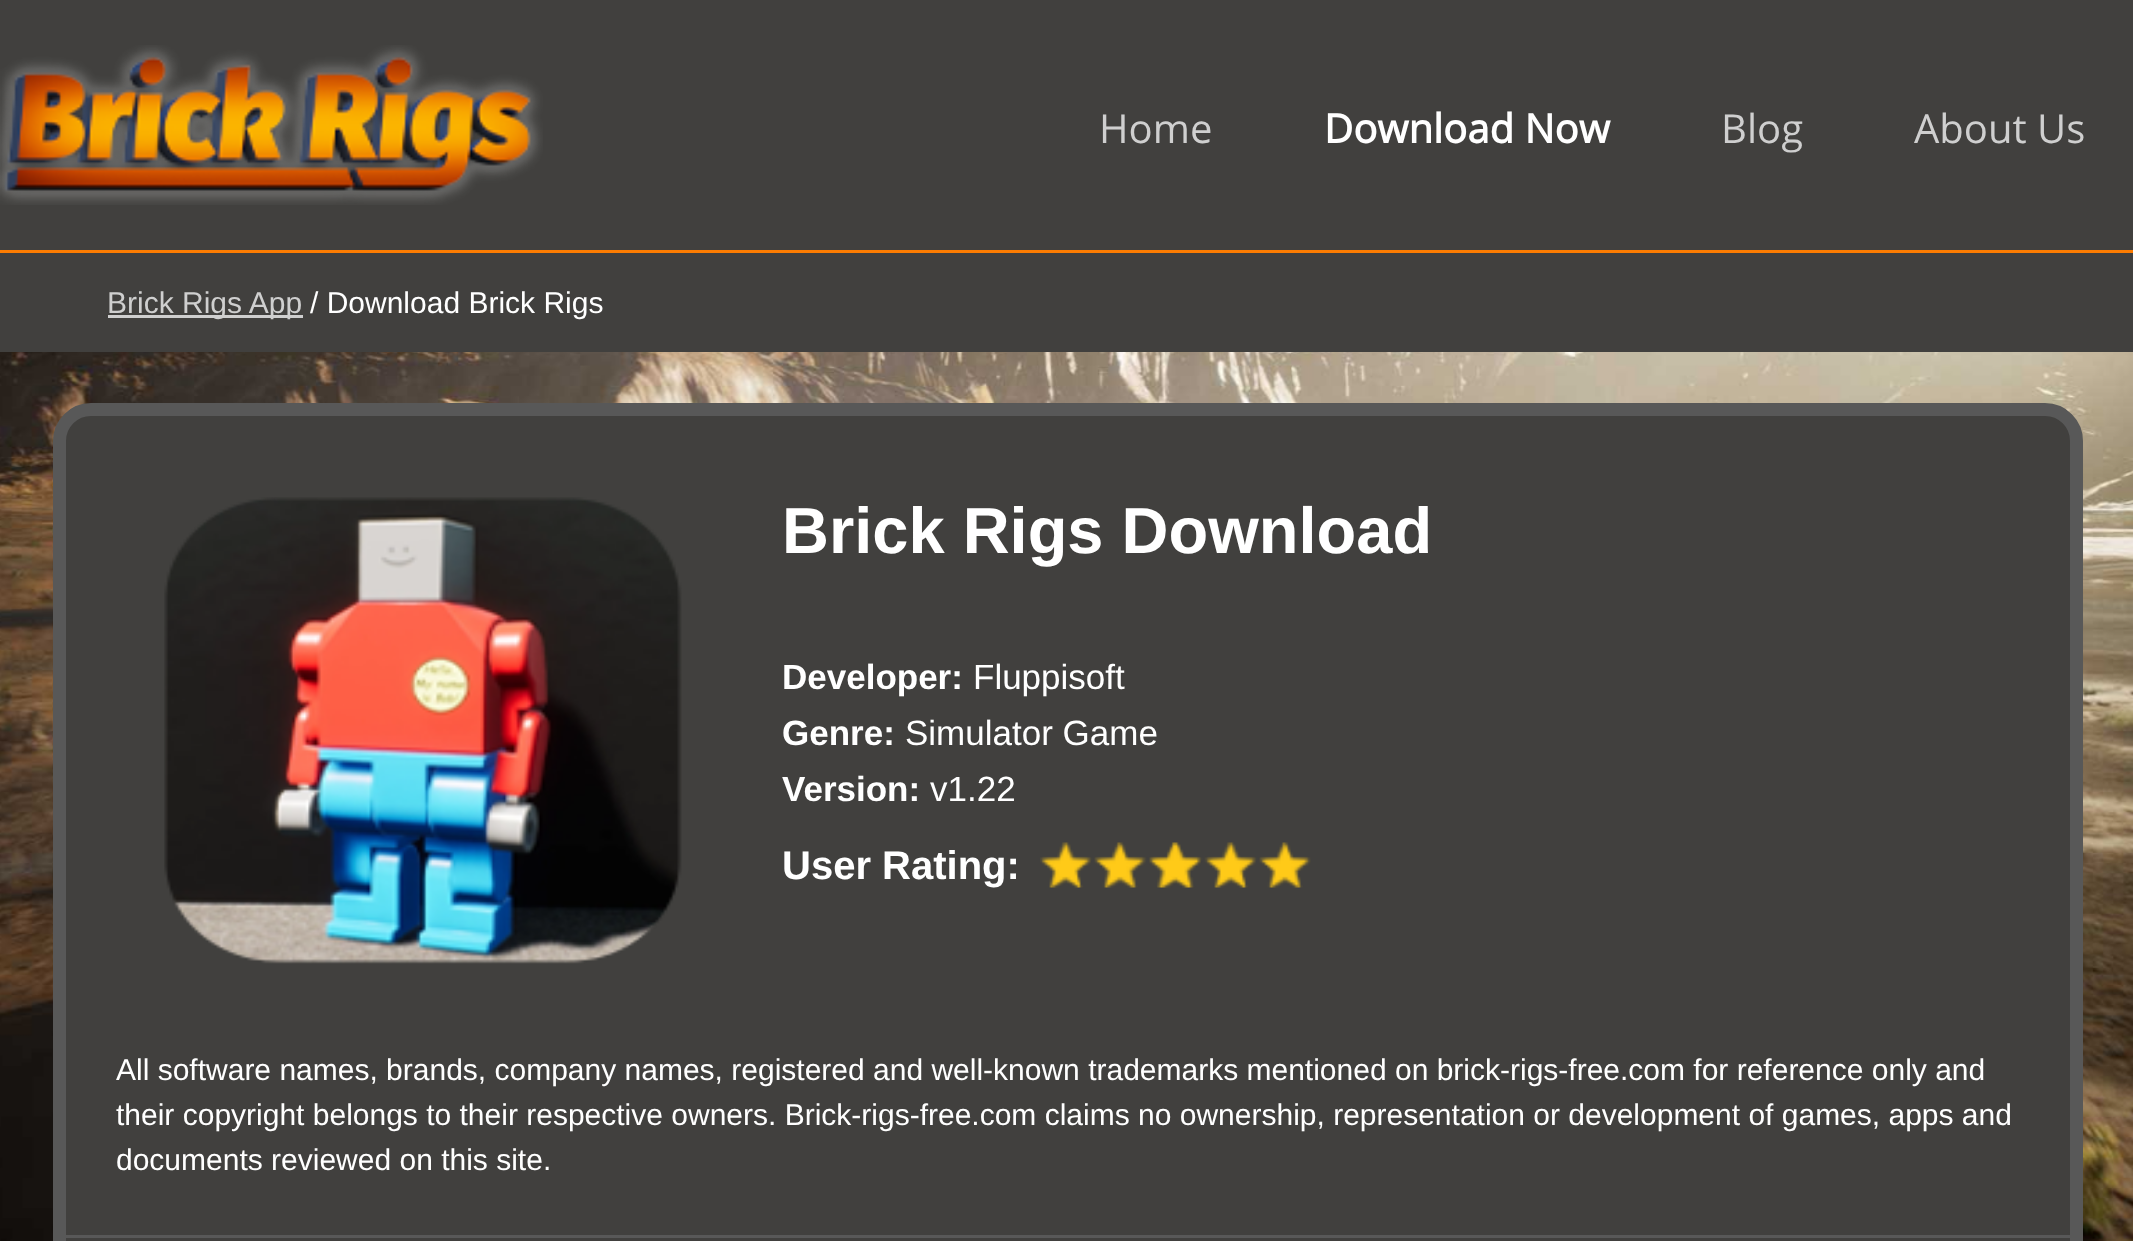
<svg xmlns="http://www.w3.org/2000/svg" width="2133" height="1241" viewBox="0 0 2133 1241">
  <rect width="100%" height="100%" fill="#41403e"/>
  <image x="0" y="45" width="543" height="160" href="img1.png"/>
  <text x="1099" y="143" font-family="Open Sans" font-size="40" fill="#cfcfcf">Home</text>
  <text x="1324" y="143" font-family="Open Sans" font-size="40" font-weight="bold" fill="#ffffff">Download Now</text>
  <text x="1721" y="143" font-family="Open Sans" font-size="40" fill="#cfcfcf">Blog</text>
  <text x="1914" y="143" font-family="Open Sans" font-size="40" fill="#cfcfcf">About Us</text>
  <rect x="0" y="250" width="2133" height="3" fill="#fc7c02"/>
  <rect x="108" y="315" width="195" height="3" fill="#cfcfcf"/>
  <text x="107" y="313" font-family="Liberation Sans" font-size="30" fill="#cfcfcf">Brick Rigs App</text>
  <text x="310" y="313" font-family="Liberation Sans" font-size="30" fill="#ffffff">/ Download Brick Rigs</text>
  <image x="0" y="352" width="2133" height="889" href="img2.png"/>
  <rect x="59.5" y="409.5" width="2017" height="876" rx="31.5" fill="#41403e" stroke="#585858" stroke-width="13"/>
  <image x="164" y="497" width="518" height="467" href="img3.png"/>
  <text x="782" y="553" font-family="Liberation Sans" font-size="65" font-weight="bold" fill="#ffffff">Brick Rigs Download</text>
  <text x="782" y="689" font-family="Liberation Sans" font-size="35" font-weight="bold" fill="#ffffff">Developer:</text>
  <text x="973" y="689" font-family="Liberation Sans" font-size="35" fill="#ffffff">Fluppisoft</text>
  <text x="782" y="745" font-family="Liberation Sans" font-size="35" font-weight="bold" fill="#ffffff">Genre:</text>
  <text x="905" y="745" font-family="Liberation Sans" font-size="35" fill="#ffffff">Simulator Game</text>
  <text x="782" y="801" font-family="Liberation Sans" font-size="35" font-weight="bold" fill="#ffffff">Version:</text>
  <text x="930" y="801" font-family="Liberation Sans" font-size="35" fill="#ffffff">v1.22</text>
  <text x="782" y="879" font-family="Liberation Sans" font-size="40" font-weight="bold" fill="#ffffff">User Rating:</text>
  <image x="1040" y="842" width="271" height="46" href="img4.png"/>
  <text x="116" y="1080" font-family="Liberation Sans" font-size="30" fill="#ffffff">All software names, brands, company names, registered and well-known trademarks mentioned on brick-rigs-free.com for reference only and</text>
  <text x="116" y="1125" font-family="Liberation Sans" font-size="30" fill="#ffffff">their copyright belongs to their respective owners. Brick-rigs-free.com claims no ownership, representation or development of games, apps and</text>
  <text x="116" y="1170" font-family="Liberation Sans" font-size="30" fill="#ffffff">documents reviewed on this site.</text>
  <rect x="65" y="1235" width="2005" height="3" fill="#585858"/>
</svg>
